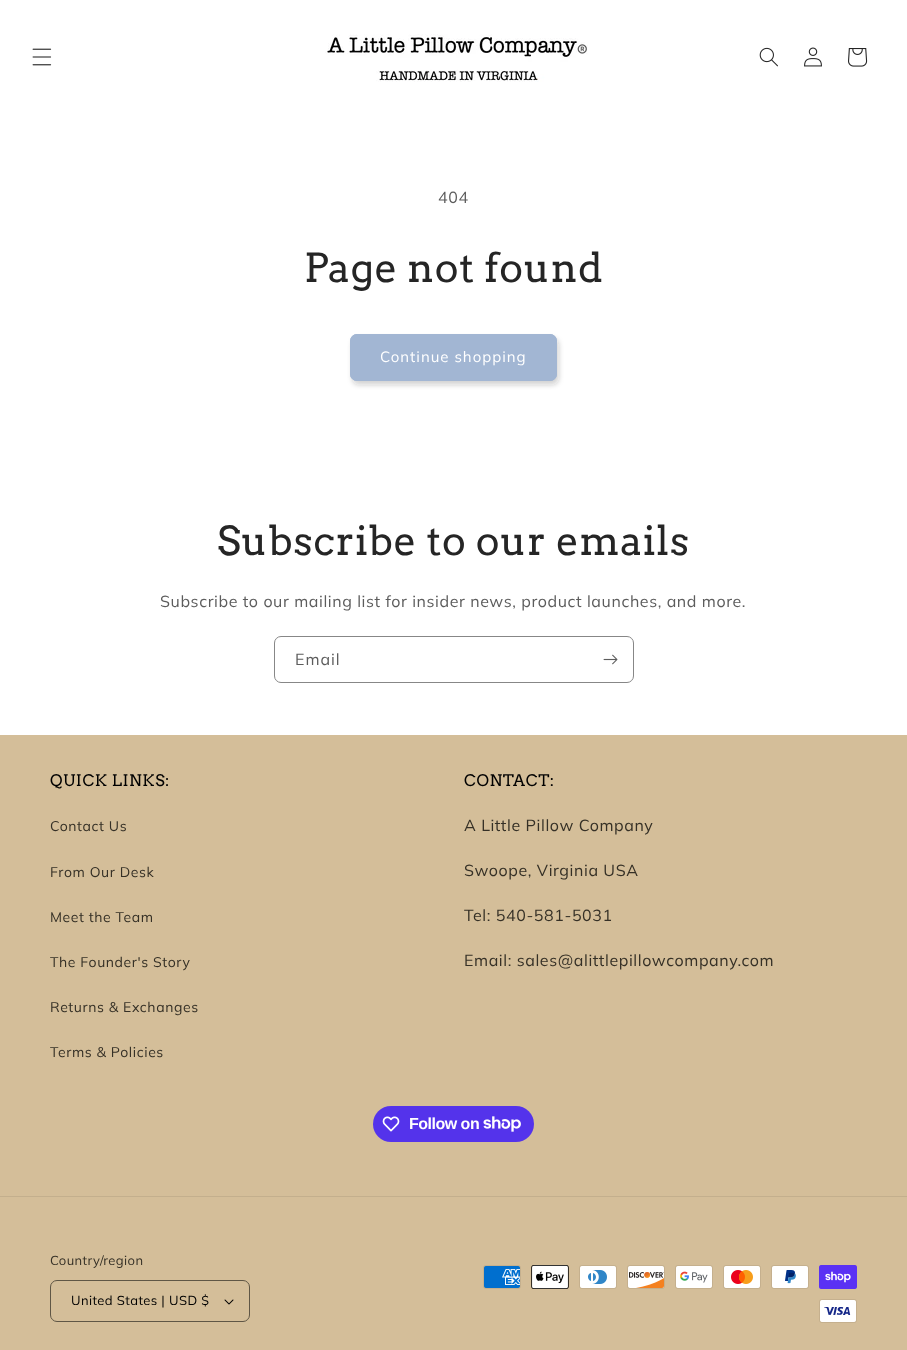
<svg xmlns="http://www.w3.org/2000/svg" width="907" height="1350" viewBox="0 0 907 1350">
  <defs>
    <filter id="blur1" x="-50%" y="-200%" width="200%" height="500%"><feGaussianBlur stdDeviation="2.5"/></filter>
  </defs>
  <rect width="100%" height="100%" fill="#ffffff"/>
  <image x="32" y="48" width="20" height="18" href="img1.png"/>
  <image x="325" y="34" width="263" height="48" href="img2.png"/>
  <image x="759" y="47" width="19" height="20" href="img3.png"/>
  <image x="804" y="47" width="18" height="20" href="img4.png"/>
  <image x="848" y="48" width="20" height="19" href="img5.png"/>
  <text x="438" y="203" font-family="Muli" font-size="16" letter-spacing="0.6" fill="#5c5c5c">404</text>
  <text x="304" y="282" font-family="Arvo" font-size="40" letter-spacing="0.6" fill="#252525">Page not found</text>
  <rect x="352" y="338" width="207" height="47" rx="7" fill="#252525" fill-opacity="0.2" filter="url(#blur1)"/>
  <rect x="350" y="334" width="207" height="47" rx="7" fill="#a2b6d3"/>
  <rect x="350.5" y="334.5" width="206" height="46" rx="6.5" fill="none" stroke="#a2b6d3"/>
  <text x="380" y="362" font-family="Muli" font-size="15" letter-spacing="1" fill="#ffffff">Continue shopping</text>
  <text x="217" y="555" font-family="Arvo" font-size="40" letter-spacing="0.6" fill="#252525">Subscribe to our emails</text>
  <text x="160" y="607" font-family="Muli" font-size="16" letter-spacing="0.6" fill="#5c5c5c">Subscribe to our mailing list for insider news, product launches, and more.</text>
  <rect x="274.5" y="636.5" width="359" height="46" rx="6.5" fill="none" stroke="#878787"/>
  <text x="295" y="665" font-family="Muli" font-size="16" letter-spacing="1" fill="#5c5c5c">Email</text>
  <image x="603" y="654" width="15" height="11" href="img6.png"/>
  <rect x="0" y="735" width="907" height="615" fill="#d4be99"/>
  <text x="50" y="786" font-family="Arvo" font-size="16" letter-spacing="0.6" fill="#000000">QUICK LINKS:</text>
  <text x="50" y="831" font-family="Muli" font-size="14" letter-spacing="0.6" fill="#353026">Contact Us</text>
  <text x="50" y="877" font-family="Muli" font-size="14" letter-spacing="0.6" fill="#353026">From Our Desk</text>
  <text x="50" y="922" font-family="Muli" font-size="14" letter-spacing="0.6" fill="#353026">Meet the Team</text>
  <text x="50" y="967" font-family="Muli" font-size="14" letter-spacing="0.6" fill="#353026">The Founder's Story</text>
  <text x="50" y="1012" font-family="Muli" font-size="14" letter-spacing="0.6" fill="#353026">Returns &amp; Exchanges</text>
  <text x="50" y="1057" font-family="Muli" font-size="14" letter-spacing="0.6" fill="#353026">Terms &amp; Policies</text>
  <text x="464" y="786" font-family="Arvo" font-size="16" letter-spacing="0.6" fill="#000000">CONTACT:</text>
  <text x="464" y="831" font-family="Muli" font-size="16" letter-spacing="0.6" fill="#353026">A Little Pillow Company</text>
  <text x="464" y="876" font-family="Muli" font-size="16" letter-spacing="0.6" fill="#353026">Swoope, Virginia USA</text>
  <text x="464" y="921" font-family="Muli" font-size="16" letter-spacing="0.6" fill="#353026">Tel: 540-581-5031</text>
  <text x="464" y="966" font-family="Muli" font-size="16" letter-spacing="0.6" fill="#353026">Email: sales@alittlepillowcompany.com</text>
  <rect x="373" y="1106" width="161" height="36" rx="18" fill="#5433eb"/>
  <image x="382" y="1116" width="18" height="16" href="img7.png"/>
  <text x="409" y="1129" font-family="Liberation Sans" font-size="16" font-weight="bold" letter-spacing="-0.5" fill="#ffffff">Follow on</text>
  <image x="483" y="1116" width="38" height="16" href="img8.png"/>
  <rect x="0" y="1196" width="907" height="1" fill="#c3af8d"/>
  <text x="50" y="1265" font-family="Muli" font-size="13" letter-spacing="0.4" fill="#353026">Country/region</text>
  <image x="224" y="1299" width="10" height="6" href="img9.png"/>
  <rect x="50.5" y="1280.5" width="199" height="41" rx="6.5" fill="none" stroke="#5f5645"/>
  <text x="71" y="1305" font-family="Muli" font-size="13" letter-spacing="0.4" fill="#000000">United States | USD $</text>
  <image x="483" y="1265" width="38" height="24" href="img10.png"/>
  <image x="531" y="1265" width="38" height="24" href="img11.png"/>
  <image x="579" y="1265" width="38" height="24" href="img12.png"/>
  <image x="627" y="1265" width="38" height="24" href="img13.png"/>
  <image x="675" y="1265" width="38" height="24" href="img14.png"/>
  <image x="723" y="1265" width="38" height="24" href="img15.png"/>
  <image x="771" y="1265" width="38" height="24" href="img16.png"/>
  <image x="819" y="1265" width="38" height="24" href="img17.png"/>
  <image x="819" y="1299" width="38" height="24" href="img18.png"/>
</svg>
